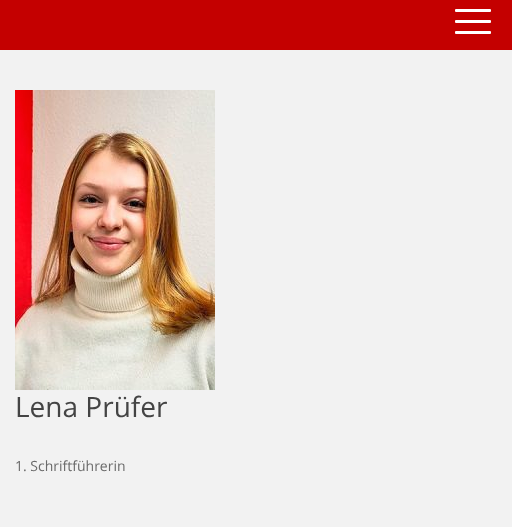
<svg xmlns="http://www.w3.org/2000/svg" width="512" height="527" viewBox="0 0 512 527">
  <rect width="100%" height="100%" fill="#f2f2f2"/>
  <rect x="0" y="0" width="512" height="50" fill="#c40000"/>
  <rect x="455" y="9" width="36" height="3" rx="1" fill="#ffffff"/>
  <rect x="455" y="20" width="36" height="3" rx="1" fill="#ffffff"/>
  <rect x="455" y="31" width="36" height="3" rx="1" fill="#ffffff"/>
  <image x="15" y="90" width="200" height="300" href="img1.png"/>
  <text x="15" y="417" font-family="Open Sans" font-size="28" fill="#444444">Lena Prüfer</text>
  <text x="15" y="471" font-family="Open Sans" font-size="14" fill="#6b6b6b">1. Schriftführerin</text>
</svg>
